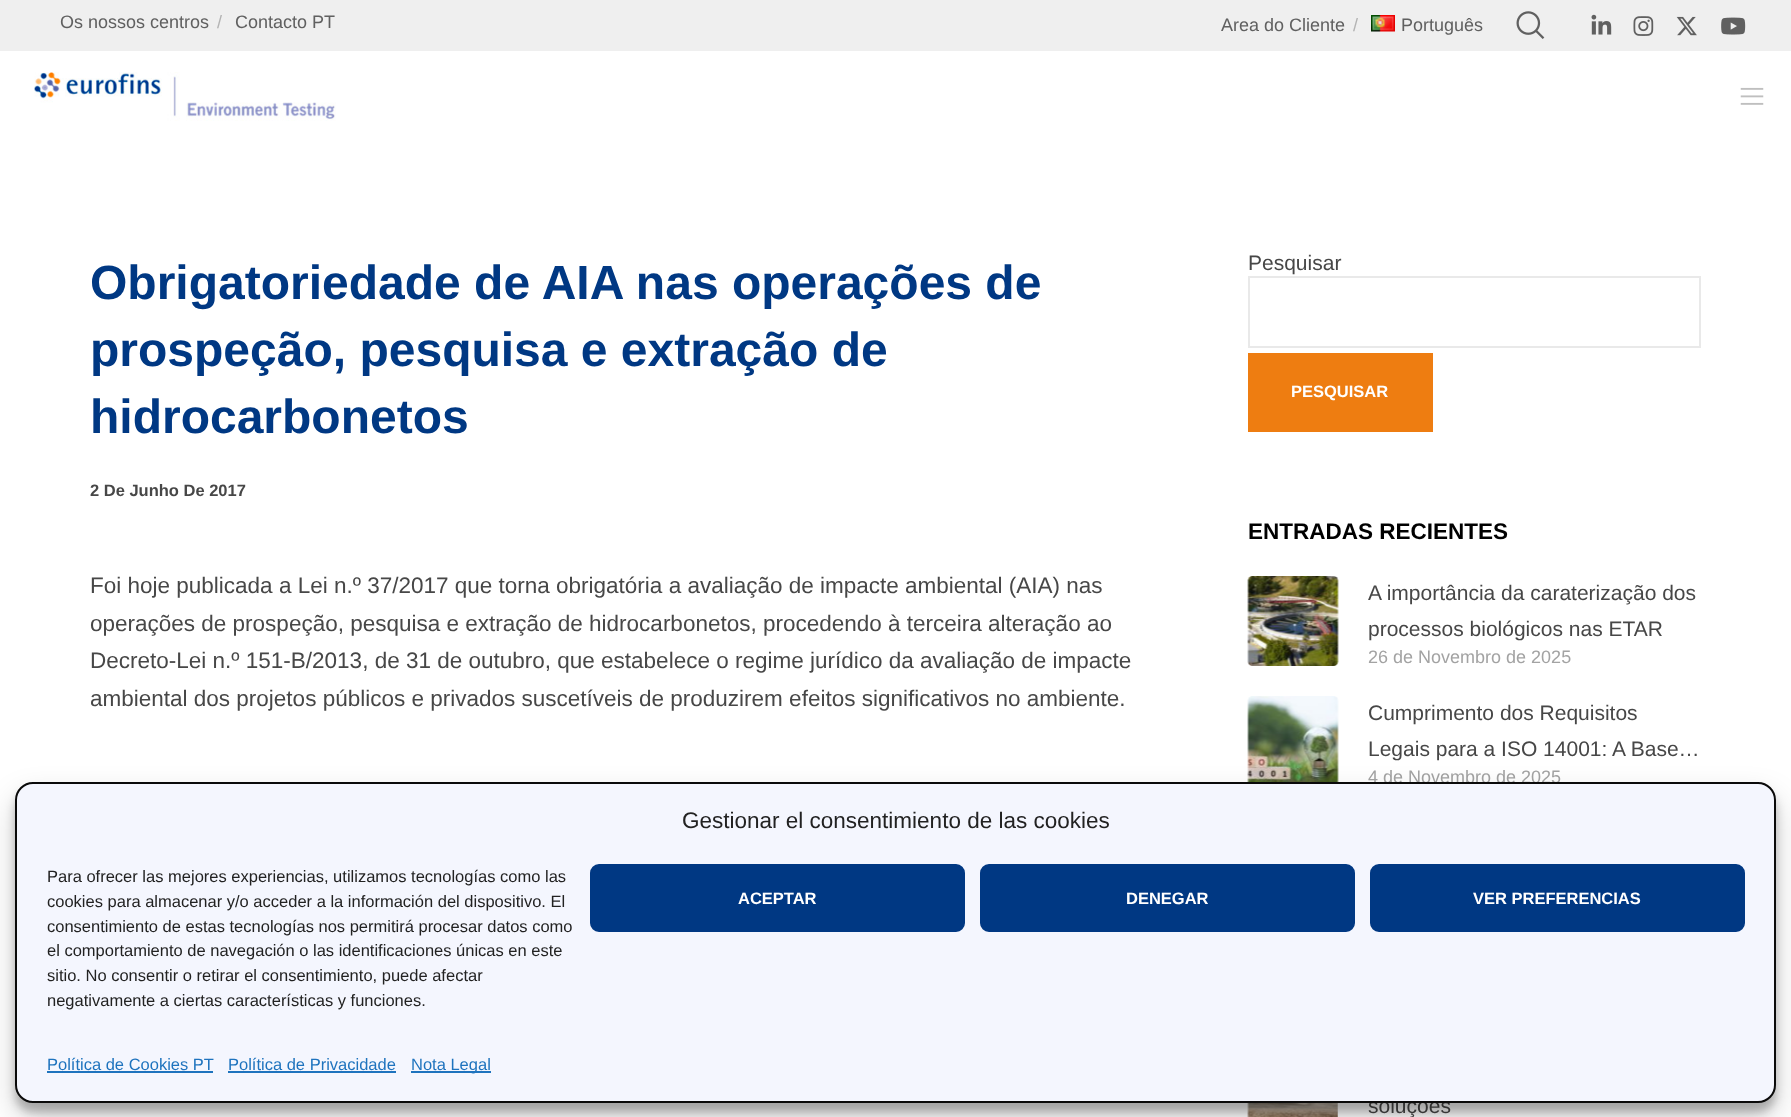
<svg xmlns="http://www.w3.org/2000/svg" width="1791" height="1117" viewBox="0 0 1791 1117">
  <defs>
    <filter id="blur1" x="-50%" y="-200%" width="200%" height="500%"><feGaussianBlur stdDeviation="4.5"/></filter>
    <filter id="blur2" x="-50%" y="-200%" width="200%" height="500%"><feGaussianBlur stdDeviation="15"/></filter>
  </defs>
  <rect width="100%" height="100%" fill="#ffffff"/>
  <rect x="0" y="0" width="1791" height="51" fill="#efefef"/>
  <text x="60" y="28" font-family="Liberation Sans" font-size="18" fill="#606060">Os nossos centros</text>
  <text x="217" y="28" font-family="Liberation Sans" font-size="18" fill="#b3b3b3">/</text>
  <text x="235" y="28" font-family="Liberation Sans" font-size="18" fill="#606060">Contacto PT</text>
  <text x="1221" y="31" font-family="Liberation Sans" font-size="18" fill="#606060">Area do Cliente</text>
  <text x="1353" y="31" font-family="Liberation Sans" font-size="18" fill="#b3b3b3">/</text>
  <image x="1371" y="15" width="24" height="17" href="img1.png"/>
  <text x="1401" y="31" font-family="Liberation Sans" font-size="18" fill="#606060">Português</text>
  <image x="1516" y="11" width="29" height="28" href="img2.png"/>
  <image x="1591" y="14" width="21" height="21" href="img3.png"/>
  <image x="1633" y="16" width="21" height="20" href="img4.png"/>
  <image x="1676" y="16" width="21" height="20" href="img5.png"/>
  <image x="1721" y="17" width="25" height="18" href="img6.png"/>
  <image x="34" y="72" width="302" height="49" href="img7.png"/>
  <image x="1740" y="87" width="24" height="18" href="img8.png"/>
  <text x="90" y="299" font-family="Liberation Sans" font-size="48" font-weight="bold" fill="#003883">Obrigatoriedade de AIA nas operações de</text>
  <text x="90" y="366" font-family="Liberation Sans" font-size="48" font-weight="bold" fill="#003883">prospeção, pesquisa e extração de</text>
  <text x="90" y="433" font-family="Liberation Sans" font-size="48" font-weight="bold" fill="#003883">hidrocarbonetos</text>
  <text x="90" y="496" font-family="Liberation Sans" font-size="16.5" font-weight="bold" fill="#474747">2 De Junho De 2017</text>
  <text x="90" y="593" font-family="Liberation Sans" font-size="22.5" fill="#474747">Foi hoje publicada a Lei n.º 37/2017 que torna obrigatória a avaliação de impacte ambiental (AIA) nas</text>
  <text x="90" y="631" font-family="Liberation Sans" font-size="22.5" fill="#474747">operações de prospeção, pesquisa e extração de hidrocarbonetos, procedendo à terceira alteração ao</text>
  <text x="90" y="668" font-family="Liberation Sans" font-size="22.5" fill="#474747">Decreto-Lei n.º 151-B/2013, de 31 de outubro, que estabelece o regime jurídico da avaliação de impacte</text>
  <text x="90" y="706" font-family="Liberation Sans" font-size="22.5" fill="#474747">ambiental dos projetos públicos e privados suscetíveis de produzirem efeitos significativos no ambiente.</text>
  <text x="1248" y="270" font-family="Liberation Sans" font-size="21" fill="#474747">Pesquisar</text>
  <rect x="1249" y="277" width="451" height="70" fill="none" stroke="#e9e9e9" stroke-width="2"/>
  <rect x="1248" y="353" width="185" height="79" fill="#ee7d11"/>
  <text x="1291" y="397" font-family="Liberation Sans" font-size="16.5" font-weight="bold" fill="#ffffff">PESQUISAR</text>
  <text x="1248" y="539" font-family="Liberation Sans" font-size="22.5" font-weight="bold" fill="#000000">ENTRADAS RECIENTES</text>
  <image x="1247" y="576" width="92" height="90" href="img9.png"/>
  <text x="1368" y="600" font-family="Liberation Sans" font-size="21" fill="#474747">A importância da caraterização dos</text>
  <text x="1368" y="636" font-family="Liberation Sans" font-size="21" fill="#474747">processos biológicos nas ETAR</text>
  <text x="1368" y="663" font-family="Liberation Sans" font-size="18" fill="#a3a3a3">26 de Novembro de 2025</text>
  <image x="1247" y="696" width="92" height="86" href="img10.png"/>
  <text x="1368" y="720" font-family="Liberation Sans" font-size="21" fill="#474747">Cumprimento dos Requisitos</text>
  <text x="1368" y="756" font-family="Liberation Sans" font-size="21" fill="#474747">Legais para a ISO 14001: A Base…</text>
  <text x="1368" y="783" font-family="Liberation Sans" font-size="18" fill="#a3a3a3">4 de Novembro de 2025</text>
  <image x="1247" y="1103" width="91" height="14" href="img11.png"/>
  <text x="1368" y="1113" font-family="Liberation Sans" font-size="21" fill="#474747">soluções</text>
  <rect x="15" y="791" width="1761" height="321" rx="18" fill="#000000" fill-opacity="0.23" filter="url(#blur1)"/>
  <rect x="15" y="797" width="1761" height="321" rx="18" fill="#000000" fill-opacity="0.19" filter="url(#blur2)"/>
  <rect x="16" y="783" width="1759" height="319" rx="17" fill="#f4f6fe" stroke="#0a0a0a" stroke-width="2"/>
  <text x="682" y="828" font-family="Liberation Sans" font-size="22.5" fill="#222222">Gestionar el consentimiento de las cookies</text>
  <text x="47" y="882" font-family="Liberation Sans" font-size="16.5" fill="#222222">Para ofrecer las mejores experiencias, utilizamos tecnologías como las</text>
  <text x="47" y="907" font-family="Liberation Sans" font-size="16.5" fill="#222222">cookies para almacenar y/o acceder a la información del dispositivo. El</text>
  <text x="47" y="932" font-family="Liberation Sans" font-size="16.5" fill="#222222">consentimiento de estas tecnologías nos permitirá procesar datos como</text>
  <text x="47" y="956" font-family="Liberation Sans" font-size="16.5" fill="#222222">el comportamiento de navegación o las identificaciones únicas en este</text>
  <text x="47" y="981" font-family="Liberation Sans" font-size="16.5" fill="#222222">sitio. No consentir o retirar el consentimiento, puede afectar</text>
  <text x="47" y="1006" font-family="Liberation Sans" font-size="16.5" fill="#222222">negativamente a ciertas características y funciones.</text>
  <rect x="591" y="865" width="373" height="66" rx="8" fill="#003883" stroke="#003883" stroke-width="2"/>
  <text x="738" y="904" font-family="Liberation Sans" font-size="16.5" font-weight="bold" fill="#ffffff">ACEPTAR</text>
  <rect x="981" y="865" width="373" height="66" rx="8" fill="#003883" stroke="#003883" stroke-width="2"/>
  <text x="1126" y="904" font-family="Liberation Sans" font-size="16.5" font-weight="bold" fill="#ffffff">DENEGAR</text>
  <rect x="1371" y="865" width="373" height="66" rx="8" fill="#003883" stroke="#003883" stroke-width="2"/>
  <text x="1473" y="904" font-family="Liberation Sans" font-size="16.5" font-weight="bold" fill="#ffffff">VER PREFERENCIAS</text>
  <text x="47" y="1070" font-family="Liberation Sans" font-size="16.5" fill="#1e73be">Política de Cookies PT</text>
  <rect x="47" y="1071" width="166" height="2" fill="#1e73be"/>
  <text x="228" y="1070" font-family="Liberation Sans" font-size="16.5" fill="#1e73be">Política de Privacidade</text>
  <rect x="228" y="1071" width="168" height="2" fill="#1e73be"/>
  <rect x="411" y="1071" width="80" height="2" fill="#1e73be"/>
  <text x="411" y="1070" font-family="Liberation Sans" font-size="16.5" fill="#1e73be">Nota Legal</text>
</svg>
